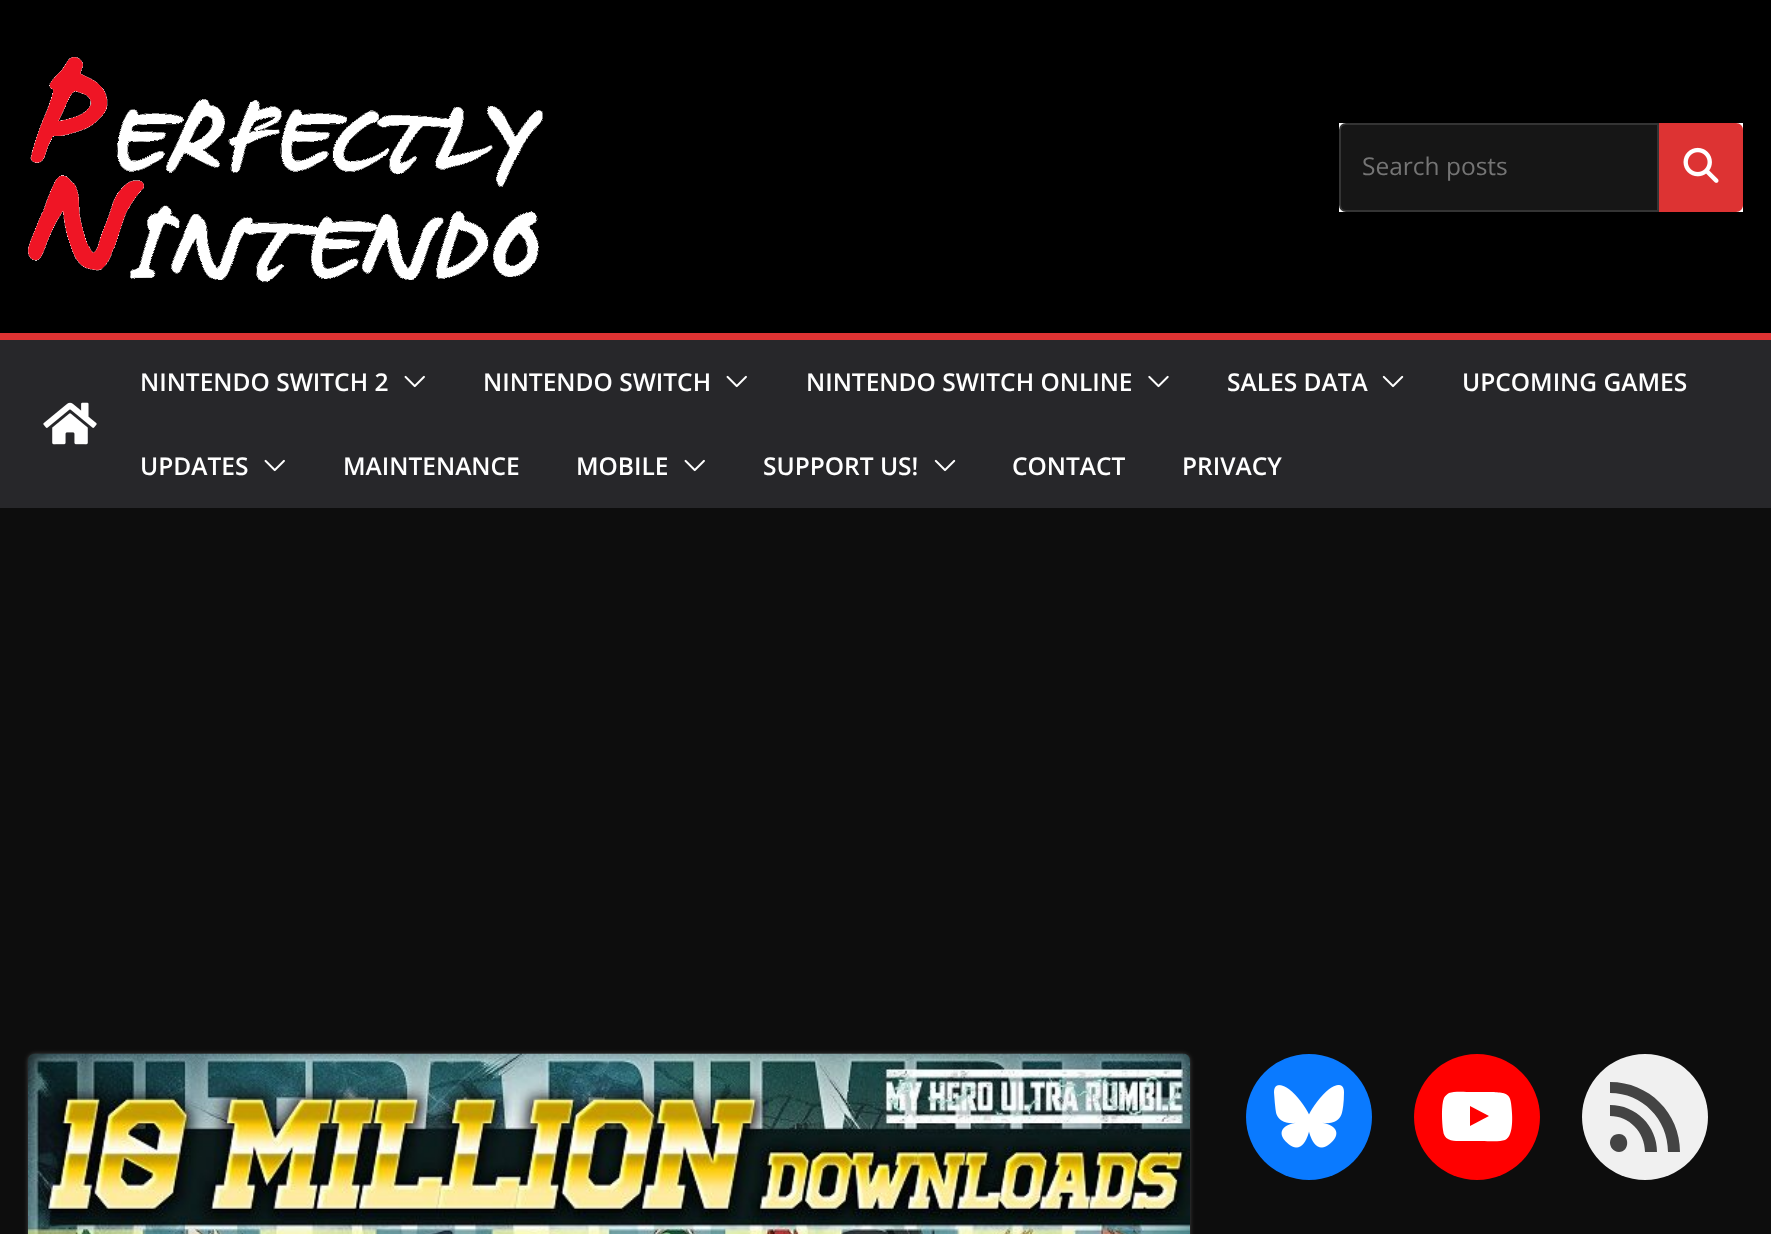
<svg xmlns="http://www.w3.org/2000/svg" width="1771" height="1234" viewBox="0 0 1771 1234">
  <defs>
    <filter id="blur1" x="-50%" y="-200%" width="200%" height="500%"><feGaussianBlur stdDeviation="2"/></filter>
  </defs>
  <rect width="100%" height="100%" fill="#0d0d0d"/>
  <rect x="0" y="0" width="1771" height="333" fill="#000000"/>
  <image x="28" y="57" width="515" height="226" href="img1.png"/>
  <rect x="1339" y="123" width="404" height="89" fill="#ffffff"/>
  <path d="M1346 124H1658V211H1346C1342.5 211 1340 208.5 1340 205V130C1340 126.5 1342.5 124 1346 124Z" fill="#161616" stroke="#343434" stroke-width="2"/>
  <text x="1362" y="175" font-family="Open Sans" font-size="24.5" fill="#757575">Search posts</text>
  <path d="M1659 123H1736C1740 123 1743 126 1743 130V205C1743 209 1740 212 1736 212H1659Z" fill="#dd3333"/>
  <image x="1683" y="147" width="36" height="36" href="img2.png"/>
  <rect x="0" y="340" width="1771" height="168" fill="#27272a"/>
  <rect x="0" y="333" width="1771" height="7" fill="#dd3333"/>
  <image x="43" y="402" width="54" height="43" href="img3.png"/>
  <text x="140" y="391" font-family="Open Sans" font-size="24.5" font-weight="600" fill="#ffffff">NINTENDO SWITCH 2</text>
  <image x="404" y="375" width="21" height="13" href="img4.png"/>
  <text x="483" y="391" font-family="Open Sans" font-size="24.5" font-weight="600" fill="#ffffff">NINTENDO SWITCH</text>
  <image x="726" y="375" width="21" height="13" href="img4.png"/>
  <text x="806" y="391" font-family="Open Sans" font-size="24.5" font-weight="600" fill="#ffffff">NINTENDO SWITCH ONLINE</text>
  <image x="1148" y="375" width="21" height="13" href="img5.png"/>
  <text x="1227" y="391" font-family="Open Sans" font-size="24.5" font-weight="600" fill="#ffffff">SALES DATA</text>
  <image x="1382" y="375" width="22" height="13" href="img6.png"/>
  <text x="1462" y="391" font-family="Open Sans" font-size="24.5" font-weight="600" fill="#ffffff">UPCOMING GAMES</text>
  <text x="140" y="475" font-family="Open Sans" font-size="24.5" font-weight="600" fill="#ffffff">UPDATES</text>
  <image x="264" y="459" width="21" height="13" href="img4.png"/>
  <text x="343" y="475" font-family="Open Sans" font-size="24.5" font-weight="600" fill="#ffffff">MAINTENANCE</text>
  <text x="576" y="475" font-family="Open Sans" font-size="24.5" font-weight="600" fill="#ffffff">MOBILE</text>
  <image x="684" y="459" width="21" height="13" href="img4.png"/>
  <text x="763" y="475" font-family="Open Sans" font-size="24.5" font-weight="600" fill="#ffffff">SUPPORT US!</text>
  <image x="934" y="459" width="22" height="13" href="img6.png"/>
  <text x="1012" y="475" font-family="Open Sans" font-size="24.5" font-weight="600" fill="#ffffff">CONTACT</text>
  <text x="1182" y="475" font-family="Open Sans" font-size="24.5" font-weight="600" fill="#ffffff">PRIVACY</text>
  <rect x="28" y="1054" width="1162" height="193" rx="7" fill="#ffffff" fill-opacity="0.24" filter="url(#blur1)"/>
  <image x="28" y="1053" width="1162" height="181" href="img7.png"/>
  <circle cx="1309" cy="1117" r="63" fill="#0a7aff"/>
  <image x="1274" y="1085" width="70" height="63" href="img8.png"/>
  <circle cx="1477" cy="1117" r="63" fill="#ff0000"/>
  <path d="M1511 1103C1510 1092 1502 1093 1494 1092H1472C1466 1092 1454 1091 1449 1093C1447 1094 1445 1096 1444 1098C1441 1105 1442 1123 1443 1130C1444 1142 1454 1141 1463 1141H1482C1488 1141 1500 1142 1505 1140C1515 1136 1512 1110 1511 1103ZM1470 1126V1106L1489 1116Z" fill="#ffffff"/>
  <circle cx="1645" cy="1117" r="63" fill="#f0f0f0"/>
  <path d="M1610 1105V1116C1629 1116 1645 1132 1645 1152H1657C1657 1126 1636 1105 1610 1105ZM1610 1082V1093C1642 1093 1668 1119 1668 1152H1680C1680 1113 1649 1082 1610 1082ZM1619 1134C1607 1134 1607 1151 1619 1152C1630 1152 1630 1134 1619 1134Z" fill="#444444"/>
</svg>
